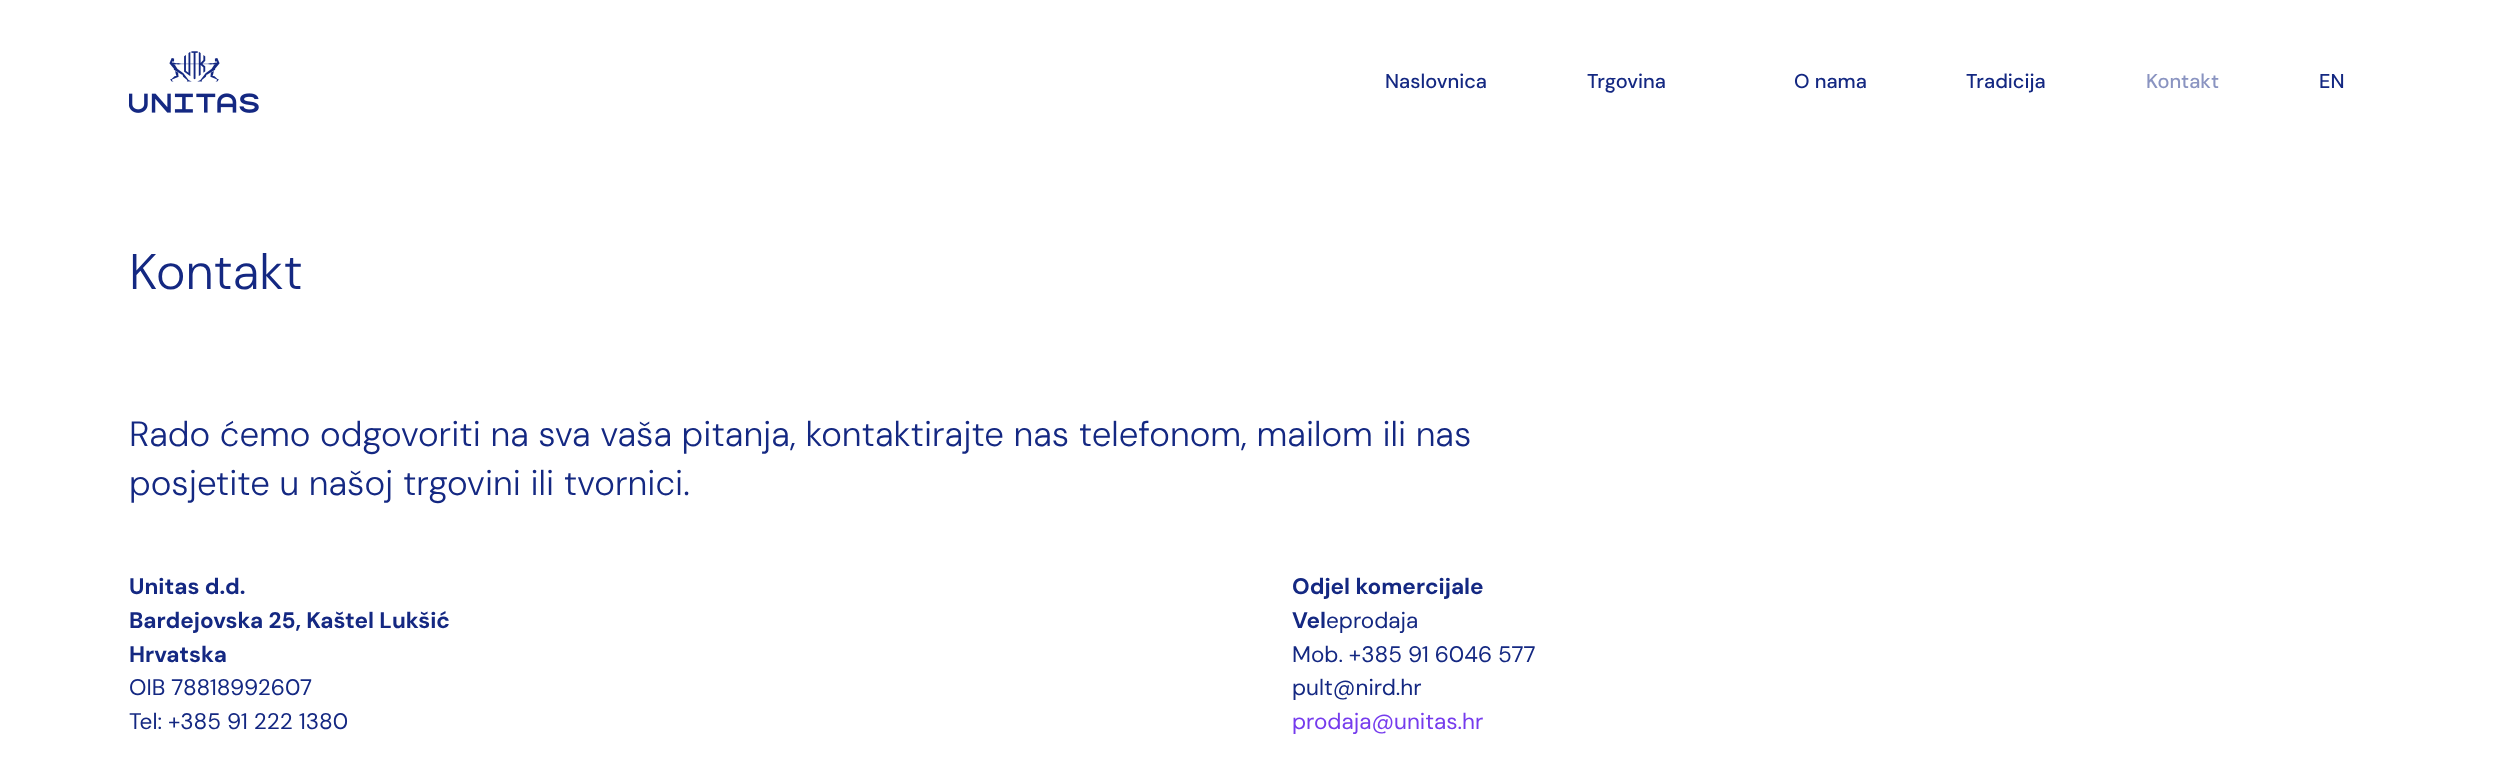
<svg xmlns="http://www.w3.org/2000/svg" width="2498" height="759" viewBox="0 0 2498 759">
  <rect width="100%" height="100%" fill="#ffffff"/>
  <image x="129" y="51" width="130" height="62" href="img1.png"/>
  <text x="1385" y="88" font-family="DM Sans" font-size="20" font-weight="500" fill="#142882">Naslovnica</text>
  <text x="1587" y="88" font-family="DM Sans" font-size="20" font-weight="500" fill="#142882">Trgovina</text>
  <text x="1794" y="88" font-family="DM Sans" font-size="20" font-weight="500" fill="#142882">O nama</text>
  <text x="1966" y="88" font-family="DM Sans" font-size="20" font-weight="500" fill="#142882">Tradicija</text>
  <text x="2146" y="88" font-family="DM Sans" font-size="20" font-weight="500" fill="#8a94c1">Kontakt</text>
  <text x="2319" y="88" font-family="DM Sans" font-size="20" font-weight="500" fill="#142882">EN</text>
  <text x="129" y="289" font-family="DM Sans" font-size="50" font-weight="300" fill="#142882">Kontakt</text>
  <text x="129" y="446" font-family="DM Sans" font-size="35" font-weight="300" fill="#142882">Rado ćemo odgovoriti na sva vaša pitanja, kontaktirajte nas telefonom, mailom ili nas</text>
  <text x="129" y="495" font-family="DM Sans" font-size="35" font-weight="300" fill="#142882">posjetite u našoj trgovini ili tvornici.</text>
  <text x="129" y="594" font-family="DM Sans" font-size="22.5" font-weight="bold" fill="#142882">Unitas d.d.</text>
  <text x="129" y="628" font-family="DM Sans" font-size="22.5" font-weight="bold" fill="#142882">Bardejovska 25, Kaštel Lukšić</text>
  <text x="129" y="662" font-family="DM Sans" font-size="22.5" font-weight="bold" fill="#142882">Hrvatska</text>
  <text x="129" y="695" font-family="DM Sans" font-size="22.5" fill="#142882">OIB 78818992607</text>
  <text x="129" y="729" font-family="DM Sans" font-size="22.5" fill="#142882">Tel: +385 91 222 1380</text>
  <text x="1292" y="594" font-family="DM Sans" font-size="22.5" font-weight="bold" fill="#142882">Odjel komercijale</text>
  <text x="1292" y="628" font-family="DM Sans" font-size="22.5" font-weight="bold" fill="#142882">Vel</text>
  <text x="1326" y="628" font-family="DM Sans" font-size="22.5" fill="#142882">eprodaja</text>
  <text x="1292" y="662" font-family="DM Sans" font-size="22.5" fill="#142882">Mob. +385 91 6046 577</text>
  <text x="1292" y="695" font-family="DM Sans" font-size="22.5" fill="#142882">pult@nird.hr</text>
  <text x="1292" y="729" font-family="DM Sans" font-size="22.5" fill="#753bed">prodaja@unitas.hr</text>
</svg>
